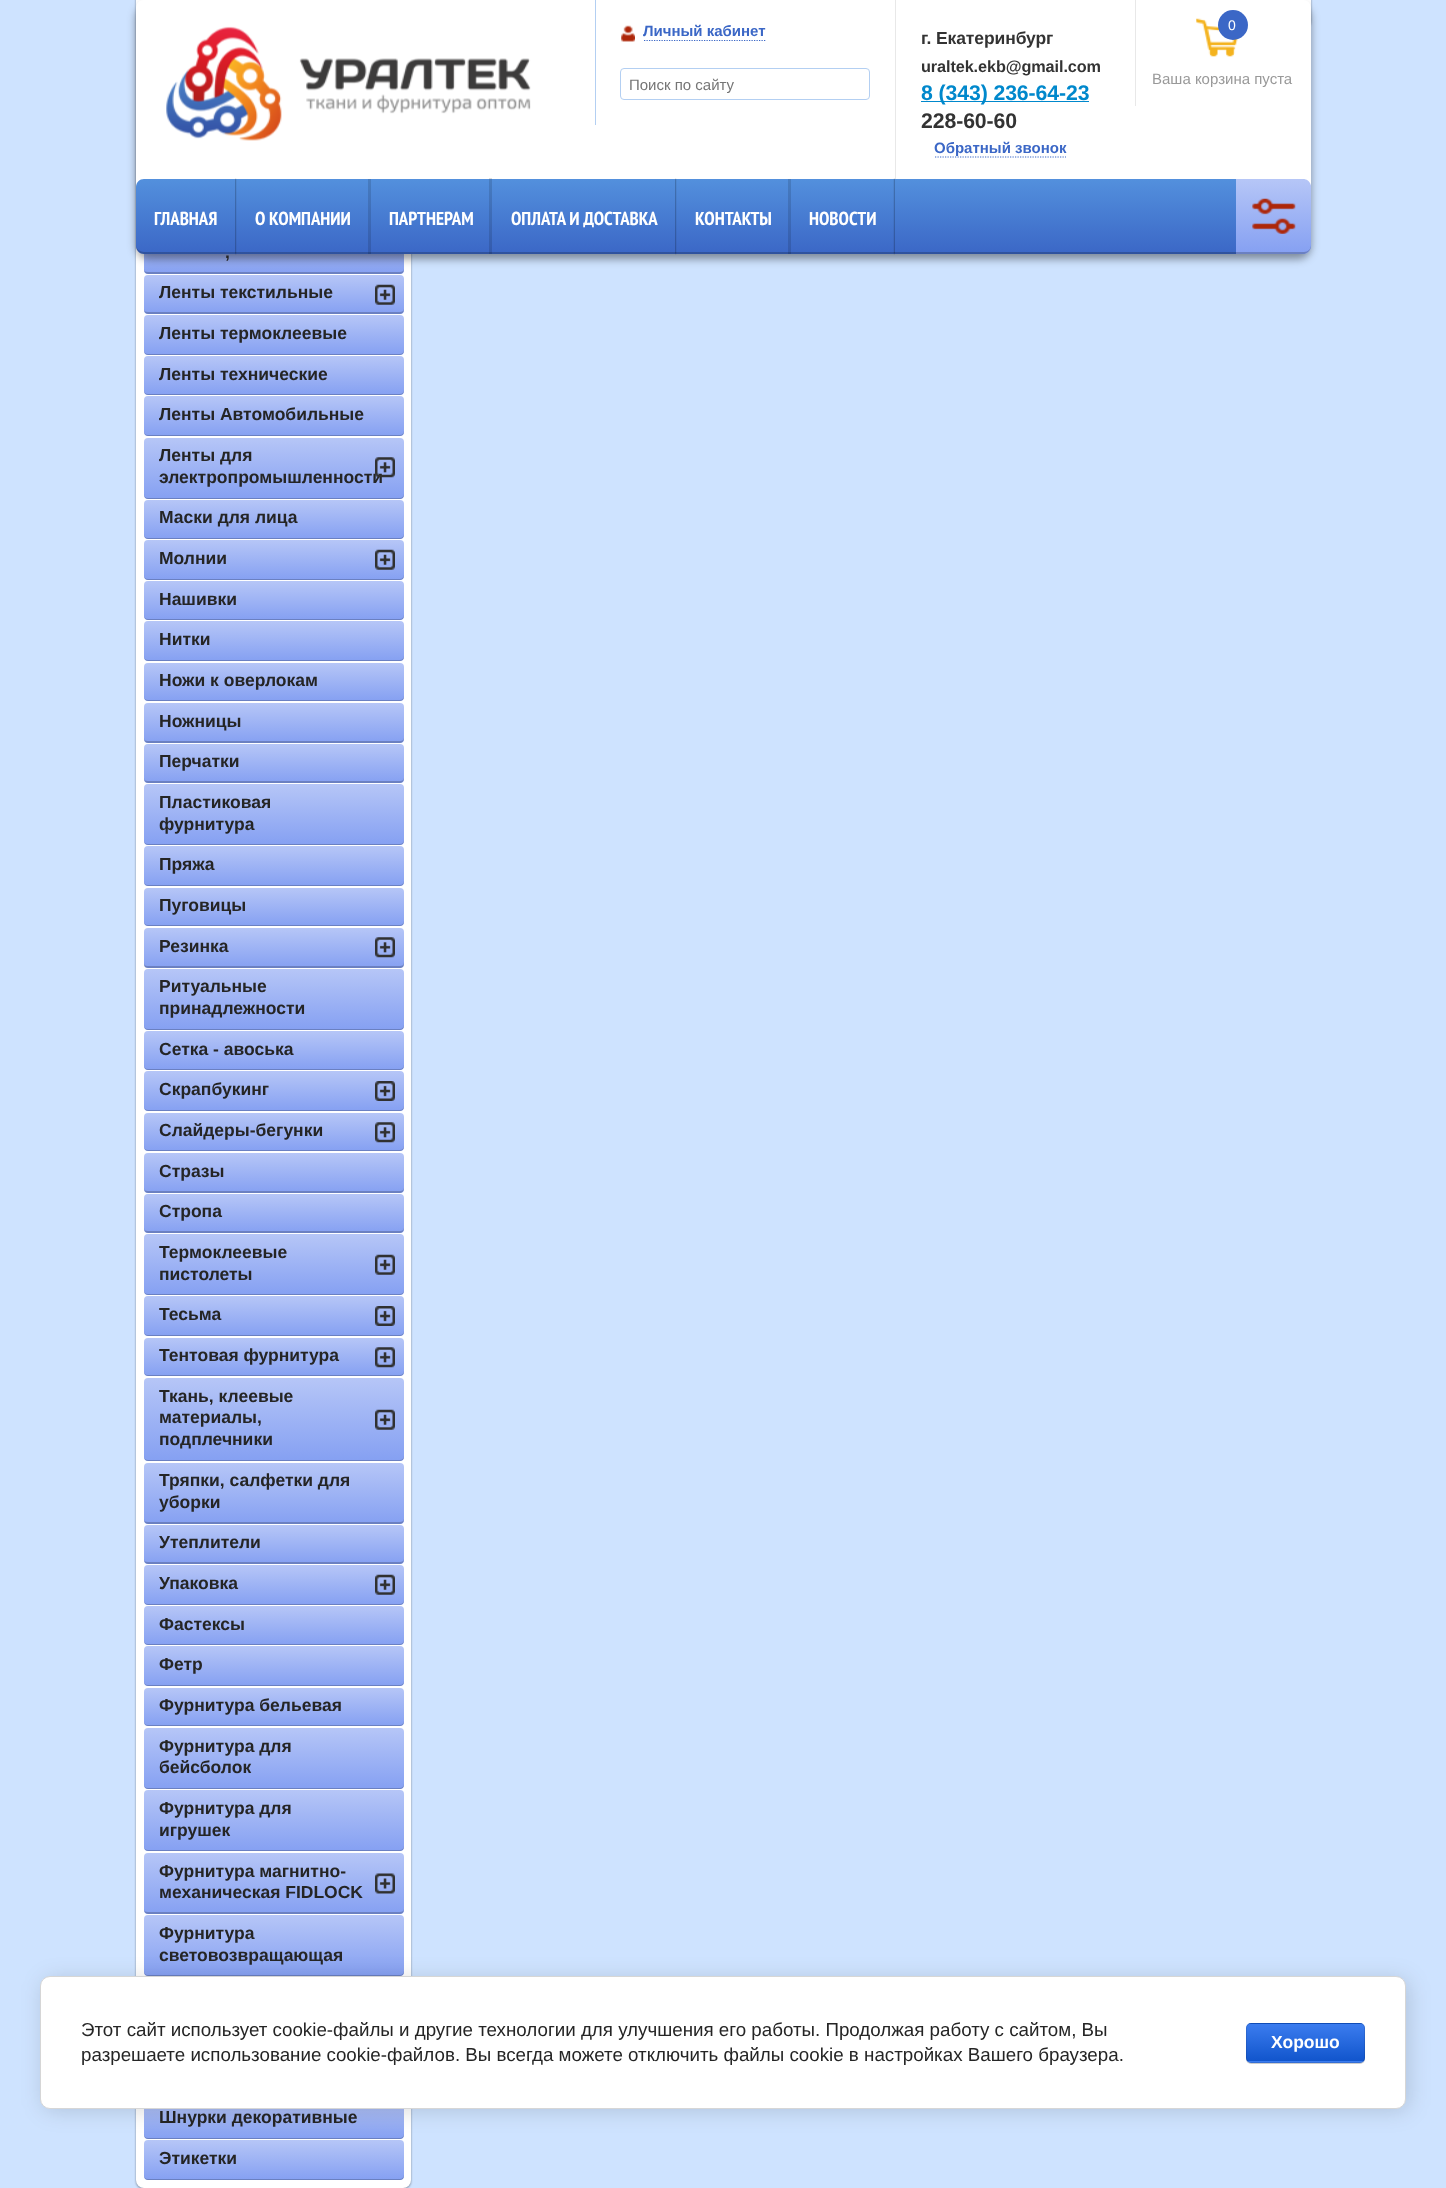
<svg xmlns="http://www.w3.org/2000/svg" width="1446" height="2188" viewBox="0 0 1446 2188">
  <defs>
    <filter id="blur1" x="-50%" y="-200%" width="200%" height="500%"><feGaussianBlur stdDeviation="1"/></filter>
    <linearGradient id="g1" gradientUnits="userSpaceOnUse" x1="274" y1="234" x2="274" y2="274"><stop offset="0" stop-color="#b6c6f7"/><stop offset="1" stop-color="#85a0f2"/></linearGradient>
    <filter id="blur2" x="-50%" y="-200%" width="200%" height="500%"><feGaussianBlur stdDeviation="4"/></filter>
    <linearGradient id="g2" gradientUnits="userSpaceOnUse" x1="724" y1="179" x2="724" y2="254"><stop offset="0" stop-color="#5390dd"/><stop offset="1" stop-color="#3b67c6"/></linearGradient>
    <linearGradient id="g3" gradientUnits="userSpaceOnUse" x1="1274" y1="179" x2="1274" y2="254"><stop offset="0" stop-color="#b6c6f7"/><stop offset="1" stop-color="#85a0f2"/></linearGradient>
    <linearGradient id="g4" gradientUnits="userSpaceOnUse" x1="274" y1="275" x2="274" y2="314"><stop offset="0" stop-color="#b6c6f7"/><stop offset="1" stop-color="#85a0f2"/></linearGradient>
    <linearGradient id="g5" gradientUnits="userSpaceOnUse" x1="274" y1="315" x2="274" y2="355"><stop offset="0" stop-color="#b6c6f7"/><stop offset="1" stop-color="#85a0f2"/></linearGradient>
    <linearGradient id="g6" gradientUnits="userSpaceOnUse" x1="274" y1="356" x2="274" y2="395"><stop offset="0" stop-color="#b6c6f7"/><stop offset="1" stop-color="#85a0f2"/></linearGradient>
    <linearGradient id="g7" gradientUnits="userSpaceOnUse" x1="274" y1="396" x2="274" y2="436"><stop offset="0" stop-color="#b6c6f7"/><stop offset="1" stop-color="#85a0f2"/></linearGradient>
    <linearGradient id="g8" gradientUnits="userSpaceOnUse" x1="274" y1="438" x2="274" y2="499"><stop offset="0" stop-color="#b6c6f7"/><stop offset="1" stop-color="#85a0f2"/></linearGradient>
    <linearGradient id="g9" gradientUnits="userSpaceOnUse" x1="274" y1="500" x2="274" y2="539"><stop offset="0" stop-color="#b6c6f7"/><stop offset="1" stop-color="#85a0f2"/></linearGradient>
    <linearGradient id="g10" gradientUnits="userSpaceOnUse" x1="274" y1="540" x2="274" y2="580"><stop offset="0" stop-color="#b6c6f7"/><stop offset="1" stop-color="#85a0f2"/></linearGradient>
    <linearGradient id="g11" gradientUnits="userSpaceOnUse" x1="274" y1="581" x2="274" y2="620"><stop offset="0" stop-color="#b6c6f7"/><stop offset="1" stop-color="#85a0f2"/></linearGradient>
    <linearGradient id="g12" gradientUnits="userSpaceOnUse" x1="274" y1="621" x2="274" y2="661"><stop offset="0" stop-color="#b6c6f7"/><stop offset="1" stop-color="#85a0f2"/></linearGradient>
    <linearGradient id="g13" gradientUnits="userSpaceOnUse" x1="274" y1="663" x2="274" y2="701"><stop offset="0" stop-color="#b6c6f7"/><stop offset="1" stop-color="#85a0f2"/></linearGradient>
    <linearGradient id="g14" gradientUnits="userSpaceOnUse" x1="274" y1="703" x2="274" y2="743"><stop offset="0" stop-color="#b6c6f7"/><stop offset="1" stop-color="#85a0f2"/></linearGradient>
    <linearGradient id="g15" gradientUnits="userSpaceOnUse" x1="274" y1="744" x2="274" y2="783"><stop offset="0" stop-color="#b6c6f7"/><stop offset="1" stop-color="#85a0f2"/></linearGradient>
    <linearGradient id="g16" gradientUnits="userSpaceOnUse" x1="274" y1="784" x2="274" y2="845"><stop offset="0" stop-color="#b6c6f7"/><stop offset="1" stop-color="#85a0f2"/></linearGradient>
    <linearGradient id="g17" gradientUnits="userSpaceOnUse" x1="274" y1="846" x2="274" y2="886"><stop offset="0" stop-color="#b6c6f7"/><stop offset="1" stop-color="#85a0f2"/></linearGradient>
    <linearGradient id="g18" gradientUnits="userSpaceOnUse" x1="274" y1="888" x2="274" y2="926"><stop offset="0" stop-color="#b6c6f7"/><stop offset="1" stop-color="#85a0f2"/></linearGradient>
    <linearGradient id="g19" gradientUnits="userSpaceOnUse" x1="274" y1="928" x2="274" y2="968"><stop offset="0" stop-color="#b6c6f7"/><stop offset="1" stop-color="#85a0f2"/></linearGradient>
    <linearGradient id="g20" gradientUnits="userSpaceOnUse" x1="274" y1="969" x2="274" y2="1030"><stop offset="0" stop-color="#b6c6f7"/><stop offset="1" stop-color="#85a0f2"/></linearGradient>
    <linearGradient id="g21" gradientUnits="userSpaceOnUse" x1="274" y1="1031" x2="274" y2="1070"><stop offset="0" stop-color="#b6c6f7"/><stop offset="1" stop-color="#85a0f2"/></linearGradient>
    <linearGradient id="g22" gradientUnits="userSpaceOnUse" x1="274" y1="1071" x2="274" y2="1111"><stop offset="0" stop-color="#b6c6f7"/><stop offset="1" stop-color="#85a0f2"/></linearGradient>
    <linearGradient id="g23" gradientUnits="userSpaceOnUse" x1="274" y1="1113" x2="274" y2="1151"><stop offset="0" stop-color="#b6c6f7"/><stop offset="1" stop-color="#85a0f2"/></linearGradient>
    <linearGradient id="g24" gradientUnits="userSpaceOnUse" x1="274" y1="1153" x2="274" y2="1193"><stop offset="0" stop-color="#b6c6f7"/><stop offset="1" stop-color="#85a0f2"/></linearGradient>
    <linearGradient id="g25" gradientUnits="userSpaceOnUse" x1="274" y1="1194" x2="274" y2="1233"><stop offset="0" stop-color="#b6c6f7"/><stop offset="1" stop-color="#85a0f2"/></linearGradient>
    <linearGradient id="g26" gradientUnits="userSpaceOnUse" x1="274" y1="1234" x2="274" y2="1295"><stop offset="0" stop-color="#b6c6f7"/><stop offset="1" stop-color="#85a0f2"/></linearGradient>
    <linearGradient id="g27" gradientUnits="userSpaceOnUse" x1="274" y1="1296" x2="274" y2="1336"><stop offset="0" stop-color="#b6c6f7"/><stop offset="1" stop-color="#85a0f2"/></linearGradient>
    <linearGradient id="g28" gradientUnits="userSpaceOnUse" x1="274" y1="1338" x2="274" y2="1376"><stop offset="0" stop-color="#b6c6f7"/><stop offset="1" stop-color="#85a0f2"/></linearGradient>
    <linearGradient id="g29" gradientUnits="userSpaceOnUse" x1="274" y1="1378" x2="274" y2="1461"><stop offset="0" stop-color="#b6c6f7"/><stop offset="1" stop-color="#85a0f2"/></linearGradient>
    <linearGradient id="g30" gradientUnits="userSpaceOnUse" x1="274" y1="1463" x2="274" y2="1524"><stop offset="0" stop-color="#b6c6f7"/><stop offset="1" stop-color="#85a0f2"/></linearGradient>
    <linearGradient id="g31" gradientUnits="userSpaceOnUse" x1="274" y1="1525" x2="274" y2="1564"><stop offset="0" stop-color="#b6c6f7"/><stop offset="1" stop-color="#85a0f2"/></linearGradient>
    <linearGradient id="g32" gradientUnits="userSpaceOnUse" x1="274" y1="1565" x2="274" y2="1605"><stop offset="0" stop-color="#b6c6f7"/><stop offset="1" stop-color="#85a0f2"/></linearGradient>
    <linearGradient id="g33" gradientUnits="userSpaceOnUse" x1="274" y1="1606" x2="274" y2="1645"><stop offset="0" stop-color="#b6c6f7"/><stop offset="1" stop-color="#85a0f2"/></linearGradient>
    <linearGradient id="g34" gradientUnits="userSpaceOnUse" x1="274" y1="1646" x2="274" y2="1686"><stop offset="0" stop-color="#b6c6f7"/><stop offset="1" stop-color="#85a0f2"/></linearGradient>
    <linearGradient id="g35" gradientUnits="userSpaceOnUse" x1="274" y1="1688" x2="274" y2="1726"><stop offset="0" stop-color="#b6c6f7"/><stop offset="1" stop-color="#85a0f2"/></linearGradient>
    <linearGradient id="g36" gradientUnits="userSpaceOnUse" x1="274" y1="1728" x2="274" y2="1789"><stop offset="0" stop-color="#b6c6f7"/><stop offset="1" stop-color="#85a0f2"/></linearGradient>
    <linearGradient id="g37" gradientUnits="userSpaceOnUse" x1="274" y1="1790" x2="274" y2="1851"><stop offset="0" stop-color="#b6c6f7"/><stop offset="1" stop-color="#85a0f2"/></linearGradient>
    <linearGradient id="g38" gradientUnits="userSpaceOnUse" x1="274" y1="1853" x2="274" y2="1914"><stop offset="0" stop-color="#b6c6f7"/><stop offset="1" stop-color="#85a0f2"/></linearGradient>
    <linearGradient id="g39" gradientUnits="userSpaceOnUse" x1="274" y1="1915" x2="274" y2="1976"><stop offset="0" stop-color="#b6c6f7"/><stop offset="1" stop-color="#85a0f2"/></linearGradient>
    <linearGradient id="g40" gradientUnits="userSpaceOnUse" x1="274" y1="2100" x2="274" y2="2139"><stop offset="0" stop-color="#b6c6f7"/><stop offset="1" stop-color="#85a0f2"/></linearGradient>
    <linearGradient id="g41" gradientUnits="userSpaceOnUse" x1="274" y1="2140" x2="274" y2="2180"><stop offset="0" stop-color="#b6c6f7"/><stop offset="1" stop-color="#85a0f2"/></linearGradient>
    <filter id="blur3" x="-50%" y="-200%" width="200%" height="500%"><feGaussianBlur stdDeviation="11"/></filter>
    <filter id="blur4" x="-50%" y="-200%" width="200%" height="500%"><feGaussianBlur stdDeviation="0.5"/></filter>
    <clipPath id="clip1"><rect x="1246" y="2023" width="119" height="40" rx="5"/></clipPath>
    <linearGradient id="g42" gradientUnits="userSpaceOnUse" x1="1306" y1="1986" x2="1306" y2="2024"><stop offset="0" stop-color="#3b7cef"/><stop offset="1" stop-color="#1155cc"/></linearGradient>
    <linearGradient id="g43" gradientUnits="userSpaceOnUse" x1="1306" y1="2024" x2="1306" y2="2061"><stop offset="0" stop-color="#3b7cef"/><stop offset="1" stop-color="#1155cc"/></linearGradient>
    <linearGradient id="g44" gradientUnits="userSpaceOnUse" x1="1306" y1="2061" x2="1306" y2="2099"><stop offset="0" stop-color="#3b7cef"/><stop offset="1" stop-color="#1155cc"/></linearGradient>
  </defs>
  <rect width="100%" height="100%" fill="#cee3ff"/>
  <rect x="436" y="-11" width="875" height="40" rx="8" fill="#000000" fill-opacity="0.4" filter="url(#blur1)"/>
  <rect x="1303" y="0" width="8" height="8" fill="#ffffff"/>
  <rect x="136" y="-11" width="275" height="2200" rx="8" fill="#000000" fill-opacity="0.4" filter="url(#blur1)"/>
  <rect x="136" y="-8" width="275" height="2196" rx="8" fill="#ffffff"/>
  <rect x="144" y="234" width="260" height="40" rx="4" fill="url(#g1)"/>
  <path d="M144 269V270C144 272 146 274 148 274H400C402 274 404 272 404 270V269C404 271 402 272 400 272H148C145 272 144 271 144 269Z" fill="#000000" fill-opacity="0.2"/>
  <rect x="136" y="5" width="1175" height="254" rx="13" fill="#000000" fill-opacity="0.4" filter="url(#blur2)"/>
  <path d="M144 0H1303C1307.5 0 1311 3.5 1311 8V241C1311 248 1305 254 1298 254H149C142 254 136 248 136 241V8C136 3.5 139.5 0 144 0Z" fill="#ffffff"/>
  <image x="166" y="26" width="365" height="115" href="img1.png"/>
  <rect x="595" y="0" width="1" height="125" fill="#b3cff2"/>
  <image x="621" y="25" width="14" height="17" href="img2.png"/>
  <text x="643" y="36" font-family="Liberation Sans" font-size="15" font-weight="bold" fill="#3b67c6">Личный кабинет</text>
  <path d="M644 40.5H766" fill="none" stroke="#3b67c6" stroke-width="1.2" stroke-dasharray="1.25 1.25"/>
  <rect x="620.5" y="68.5" width="249" height="31" rx="3.5" fill="none" stroke="#b3cff2"/>
  <text x="629" y="90" font-family="Liberation Sans" font-size="15" fill="#757575">Поиск по сайту</text>
  <rect x="895" y="0" width="1" height="179" fill="#e8e8e8"/>
  <text x="921" y="44" font-family="Liberation Sans" font-size="17.5" font-weight="bold" letter-spacing="-0.1" fill="#333333">г. Екатеринбург</text>
  <text x="921" y="72" font-family="Liberation Sans" font-size="16.25" font-weight="bold" letter-spacing="-0.1" fill="#333333">uraltek.ekb@gmail.com</text>
  <rect x="921" y="101" width="168" height="1" fill="#0088cc"/>
  <text x="921" y="100" font-family="Liberation Sans" font-size="21.25" font-weight="bold" letter-spacing="-0.1" fill="#0088cc">8 (343) 236-64-23</text>
  <text x="921" y="128" font-family="Liberation Sans" font-size="21.25" font-weight="bold" letter-spacing="-0.1" fill="#333333">228-60-60</text>
  <path d="M935 157H1066" fill="none" stroke="#3b67c6" stroke-width="1.2" stroke-dasharray="1.25 1.25"/>
  <text x="934" y="153" font-family="Liberation Sans" font-size="15" font-weight="bold" fill="#3b67c6">Обратный звонок</text>
  <image x="1196" y="18" width="42" height="39" href="img3.png"/>
  <rect x="1135" y="0" width="1" height="106" fill="#e8e8e8"/>
  <circle cx="1233" cy="25" r="15" fill="#3b67c6"/>
  <text x="1228" y="30" font-family="Liberation Sans" font-size="14" fill="#ffffff">0</text>
  <text x="1152" y="84" font-family="Liberation Sans" font-size="15" fill="#999999">Ваша корзина пуста</text>
  <path d="M144 179H1301C1306.5 179 1311 183.5 1311 189V244C1311 249.5 1306.5 254 1301 254H144C139.5 254 136 250.5 136 246V187C136 182.5 139.5 179 144 179Z" fill="url(#g2)"/>
  <path d="M136 245V246C136 250 140 254 144 254H1301C1307 254 1311 250 1311 244V242C1311 248 1307 252 1301 252H144C140 252 136 249 136 245Z" fill="#000000" fill-opacity="0.2"/>
  <image x="235" y="178" width="2" height="77" href="img4.png"/>
  <text x="154" y="225" font-family="PT Sans Narrow" font-size="18.75" font-weight="bold" fill="#ffffff">ГЛАВНАЯ</text>
  <rect x="368" y="179" width="3" height="75" fill="#000000" fill-opacity="0.13"/>
  <text x="255" y="225" font-family="PT Sans Narrow" font-size="18.75" font-weight="bold" fill="#ffffff">О КОМПАНИИ</text>
  <rect x="489" y="178" width="3" height="76" fill="#000000" fill-opacity="0.13"/>
  <text x="389" y="225" font-family="PT Sans Narrow" font-size="18.75" font-weight="bold" fill="#ffffff">ПАРТНЕРАМ</text>
  <image x="675" y="178" width="2" height="77" href="img5.png"/>
  <text x="511" y="225" font-family="PT Sans Narrow" font-size="18.75" font-weight="bold" fill="#ffffff">ОПЛАТА И ДОСТАВКА</text>
  <rect x="788" y="179" width="3" height="75" fill="#000000" fill-opacity="0.13"/>
  <text x="695" y="225" font-family="PT Sans Narrow" font-size="18.75" font-weight="bold" fill="#ffffff">КОНТАКТЫ</text>
  <image x="893" y="178" width="2" height="77" href="img6.png"/>
  <text x="809" y="225" font-family="PT Sans Narrow" font-size="18.75" font-weight="bold" fill="#ffffff">НОВОСТИ</text>
  <path d="M1236 179H1303C1307.5 179 1311 182.5 1311 187V246C1311 250.5 1307.5 254 1303 254H1236Z" fill="url(#g3)"/>
  <path d="M1236 252V254H1303C1307 254 1311 250 1311 246V245C1311 249 1308 252 1304 252Z" fill="#000000" fill-opacity="0.2"/>
  <image x="1252" y="198" width="44" height="36" href="img7.png"/>
  <text x="225" y="258" font-family="Liberation Sans" font-size="17.5" font-weight="bold" fill="#252525">,</text>
  <rect x="144" y="275" width="260" height="39" rx="4" fill="url(#g4)"/>
  <path d="M144 309V310C144 312 146 314 148 314H400C402 314 404 312 404 310V309C404 311 402 312 400 312H148C145 312 144 311 144 309Z" fill="#000000" fill-opacity="0.2"/>
  <text x="159" y="298" font-family="Liberation Sans" font-size="17.5" font-weight="bold" fill="#252525">Ленты текстильные</text>
  <image x="375" y="284" width="20" height="21" href="img8.png"/>
  <rect x="144" y="315" width="260" height="40" rx="4" fill="url(#g5)"/>
  <path d="M144 350V351C144 353 146 355 148 355H400C402 355 404 353 404 351V350C404 352 402 354 400 354H148C145 354 144 352 144 350Z" fill="#000000" fill-opacity="0.2"/>
  <text x="159" y="339" font-family="Liberation Sans" font-size="17.5" font-weight="bold" fill="#252525">Ленты термоклеевые</text>
  <rect x="144" y="356" width="260" height="39" rx="4" fill="url(#g6)"/>
  <path d="M144 390V391C144 393 146 395 148 395H400C402 395 404 393 404 391V390C404 392 402 394 400 394H148C145 394 144 392 144 390Z" fill="#000000" fill-opacity="0.2"/>
  <text x="159" y="380" font-family="Liberation Sans" font-size="17.5" font-weight="bold" fill="#252525">Ленты технические</text>
  <rect x="144" y="396" width="260" height="40" rx="4" fill="url(#g7)"/>
  <path d="M144 431V432C144 434 146 436 148 436H400C402 436 404 434 404 432V431C404 433 402 435 400 435H148C145 435 144 433 144 431Z" fill="#000000" fill-opacity="0.2"/>
  <text x="159" y="420" font-family="Liberation Sans" font-size="17.5" font-weight="bold" fill="#252525">Ленты Автомобильные</text>
  <rect x="144" y="438" width="260" height="61" rx="4" fill="url(#g8)"/>
  <path d="M144 494V495C144 497 146 499 148 499H400C402 499 404 497 404 495V494C404 496 402 498 400 498H148C145 498 144 496 144 494Z" fill="#000000" fill-opacity="0.2"/>
  <text x="159" y="461" font-family="Liberation Sans" font-size="17.5" font-weight="bold" fill="#252525">Ленты для</text>
  <text x="159" y="483" font-family="Liberation Sans" font-size="17.5" font-weight="bold" fill="#252525">электропромышленности</text>
  <image x="375" y="457" width="20" height="21" href="img9.png"/>
  <rect x="144" y="500" width="260" height="39" rx="4" fill="url(#g9)"/>
  <path d="M144 534V535C144 537 146 539 148 539H400C402 539 404 537 404 535V534C404 536 402 538 400 538H148C145 538 144 536 144 534Z" fill="#000000" fill-opacity="0.2"/>
  <text x="159" y="523" font-family="Liberation Sans" font-size="17.5" font-weight="bold" fill="#252525">Маски для лица</text>
  <rect x="144" y="540" width="260" height="40" rx="4" fill="url(#g10)"/>
  <path d="M144 575V576C144 578 146 580 148 580H400C402 580 404 578 404 576V575C404 577 402 579 400 579H148C145 579 144 577 144 575Z" fill="#000000" fill-opacity="0.2"/>
  <text x="159" y="564" font-family="Liberation Sans" font-size="17.5" font-weight="bold" fill="#252525">Молнии</text>
  <image x="375" y="549" width="20" height="21" href="img10.png"/>
  <rect x="144" y="581" width="260" height="39" rx="4" fill="url(#g11)"/>
  <path d="M144 615V616C144 618 146 620 148 620H400C402 620 404 618 404 616V615C404 617 402 619 400 619H148C145 619 144 617 144 615Z" fill="#000000" fill-opacity="0.2"/>
  <text x="159" y="605" font-family="Liberation Sans" font-size="17.5" font-weight="bold" fill="#252525">Нашивки</text>
  <rect x="144" y="621" width="260" height="40" rx="4" fill="url(#g12)"/>
  <path d="M144 656V657C144 659 146 661 148 661H400C402 661 404 659 404 657V656C404 658 402 660 400 660H148C145 660 144 658 144 656Z" fill="#000000" fill-opacity="0.2"/>
  <text x="159" y="645" font-family="Liberation Sans" font-size="17.5" font-weight="bold" fill="#252525">Нитки</text>
  <rect x="144" y="663" width="260" height="38" rx="4" fill="url(#g13)"/>
  <path d="M144 696V697C144 699 146 701 148 701H400C402 701 404 699 404 697V696C404 698 402 700 400 700H148C145 700 144 698 144 696Z" fill="#000000" fill-opacity="0.2"/>
  <text x="159" y="686" font-family="Liberation Sans" font-size="17.5" font-weight="bold" fill="#252525">Ножи к оверлокам</text>
  <rect x="144" y="703" width="260" height="40" rx="4" fill="url(#g14)"/>
  <path d="M144 738V739C144 741 146 743 148 743H400C402 743 404 741 404 739V738C404 740 402 741 400 741H148C145 741 144 740 144 738Z" fill="#000000" fill-opacity="0.2"/>
  <text x="159" y="727" font-family="Liberation Sans" font-size="17.5" font-weight="bold" fill="#252525">Ножницы</text>
  <rect x="144" y="744" width="260" height="39" rx="4" fill="url(#g15)"/>
  <path d="M144 778V779C144 781 146 783 148 783H400C402 783 404 781 404 779V778C404 780 402 781 400 781H148C145 781 144 780 144 778Z" fill="#000000" fill-opacity="0.2"/>
  <text x="159" y="767" font-family="Liberation Sans" font-size="17.5" font-weight="bold" fill="#252525">Перчатки</text>
  <rect x="144" y="784" width="260" height="61" rx="4" fill="url(#g16)"/>
  <path d="M144 840V841C144 843 146 845 148 845H400C402 845 404 843 404 841V840C404 842 402 844 400 844H148C145 844 144 842 144 840Z" fill="#000000" fill-opacity="0.2"/>
  <text x="159" y="808" font-family="Liberation Sans" font-size="17.5" font-weight="bold" fill="#252525">Пластиковая</text>
  <text x="159" y="830" font-family="Liberation Sans" font-size="17.5" font-weight="bold" fill="#252525">фурнитура</text>
  <rect x="144" y="846" width="260" height="40" rx="4" fill="url(#g17)"/>
  <path d="M144 881V882C144 884 146 886 148 886H400C402 886 404 884 404 882V881C404 883 402 885 400 885H148C145 885 144 883 144 881Z" fill="#000000" fill-opacity="0.2"/>
  <text x="159" y="870" font-family="Liberation Sans" font-size="17.5" font-weight="bold" fill="#252525">Пряжа</text>
  <rect x="144" y="888" width="260" height="38" rx="4" fill="url(#g18)"/>
  <path d="M144 921V922C144 924 146 926 148 926H400C402 926 404 924 404 922V921C404 923 402 925 400 925H148C145 925 144 923 144 921Z" fill="#000000" fill-opacity="0.2"/>
  <text x="159" y="911" font-family="Liberation Sans" font-size="17.5" font-weight="bold" fill="#252525">Пуговицы</text>
  <rect x="144" y="928" width="260" height="40" rx="4" fill="url(#g19)"/>
  <path d="M144 962C144 965 144 968 148 968H401C404 967 404 965 404 962C404 965 402 966 400 966H148C145 966 144 965 144 962Z" fill="#000000" fill-opacity="0.2"/>
  <text x="159" y="952" font-family="Liberation Sans" font-size="17.5" font-weight="bold" fill="#252525">Резинка</text>
  <image x="375" y="937" width="20" height="21" href="img11.png"/>
  <rect x="144" y="969" width="260" height="61" rx="4" fill="url(#g20)"/>
  <path d="M144 1025V1026C144 1028 146 1030 148 1030H400C402 1030 404 1028 404 1026V1025C404 1027 402 1029 400 1029H148C145 1029 144 1027 144 1025Z" fill="#000000" fill-opacity="0.2"/>
  <text x="159" y="992" font-family="Liberation Sans" font-size="17.5" font-weight="bold" fill="#252525">Ритуальные</text>
  <text x="159" y="1014" font-family="Liberation Sans" font-size="17.5" font-weight="bold" fill="#252525">принадлежности</text>
  <rect x="144" y="1031" width="260" height="39" rx="4" fill="url(#g21)"/>
  <path d="M144 1065V1066C144 1068 146 1070 148 1070H400C402 1070 404 1068 404 1066V1065C404 1067 402 1069 400 1069H148C145 1069 144 1067 144 1065Z" fill="#000000" fill-opacity="0.2"/>
  <text x="159" y="1055" font-family="Liberation Sans" font-size="17.5" font-weight="bold" fill="#252525">Сетка - авоська</text>
  <rect x="144" y="1071" width="260" height="40" rx="4" fill="url(#g22)"/>
  <path d="M144 1106V1107C144 1109 146 1111 148 1111H400C402 1111 404 1109 404 1107V1106C404 1108 402 1110 400 1110H148C145 1110 144 1108 144 1106Z" fill="#000000" fill-opacity="0.2"/>
  <text x="159" y="1095" font-family="Liberation Sans" font-size="17.5" font-weight="bold" fill="#252525">Скрапбукинг</text>
  <image x="375" y="1081" width="20" height="20" href="img12.png"/>
  <rect x="144" y="1113" width="260" height="38" rx="4" fill="url(#g23)"/>
  <path d="M144 1146V1147C144 1149 146 1151 148 1151H400C402 1151 404 1149 404 1147V1146C404 1148 402 1150 400 1150H148C145 1150 144 1148 144 1146Z" fill="#000000" fill-opacity="0.2"/>
  <text x="159" y="1136" font-family="Liberation Sans" font-size="17.5" font-weight="bold" fill="#252525">Слайдеры-бегунки</text>
  <image x="375" y="1122" width="20" height="21" href="img13.png"/>
  <rect x="144" y="1153" width="260" height="40" rx="4" fill="url(#g24)"/>
  <path d="M144 1188V1189C144 1191 146 1193 148 1193H400C402 1193 404 1191 404 1189V1188C404 1190 402 1191 400 1191H148C145 1191 144 1190 144 1188Z" fill="#000000" fill-opacity="0.2"/>
  <text x="159" y="1177" font-family="Liberation Sans" font-size="17.5" font-weight="bold" fill="#252525">Стразы</text>
  <rect x="144" y="1194" width="260" height="39" rx="4" fill="url(#g25)"/>
  <path d="M144 1228V1229C144 1231 146 1233 148 1233H400C402 1233 404 1231 404 1229V1228C404 1230 402 1231 400 1231H148C145 1231 144 1230 144 1228Z" fill="#000000" fill-opacity="0.2"/>
  <text x="159" y="1217" font-family="Liberation Sans" font-size="17.5" font-weight="bold" fill="#252525">Стропа</text>
  <rect x="144" y="1234" width="260" height="61" rx="4" fill="url(#g26)"/>
  <path d="M144 1290V1291C144 1293 146 1295 148 1295H400C402 1295 404 1293 404 1291V1290C404 1292 402 1294 400 1294H148C145 1294 144 1292 144 1290Z" fill="#000000" fill-opacity="0.2"/>
  <text x="159" y="1258" font-family="Liberation Sans" font-size="17.5" font-weight="bold" fill="#252525">Термоклеевые</text>
  <image x="375" y="1254" width="20" height="21" href="img14.png"/>
  <text x="159" y="1280" font-family="Liberation Sans" font-size="17.5" font-weight="bold" fill="#252525">пистолеты</text>
  <rect x="144" y="1296" width="260" height="40" rx="4" fill="url(#g27)"/>
  <path d="M144 1331V1332C144 1334 146 1336 148 1336H400C402 1336 404 1334 404 1332V1331C404 1333 402 1335 400 1335H148C145 1335 144 1333 144 1331Z" fill="#000000" fill-opacity="0.2"/>
  <text x="159" y="1320" font-family="Liberation Sans" font-size="17.5" font-weight="bold" fill="#252525">Тесьма</text>
  <image x="375" y="1306" width="20" height="20" href="img12.png"/>
  <rect x="144" y="1338" width="260" height="38" rx="4" fill="url(#g28)"/>
  <path d="M144 1371V1372C144 1374 146 1376 148 1376H400C402 1376 404 1374 404 1372V1371C404 1373 402 1375 400 1375H148C145 1375 144 1373 144 1371Z" fill="#000000" fill-opacity="0.2"/>
  <text x="159" y="1361" font-family="Liberation Sans" font-size="17.5" font-weight="bold" fill="#252525">Тентовая фурнитура</text>
  <image x="375" y="1347" width="20" height="21" href="img13.png"/>
  <rect x="144" y="1378" width="260" height="83" rx="4" fill="url(#g29)"/>
  <path d="M144 1456V1457C144 1459 146 1461 148 1461H400C402 1461 404 1459 404 1457V1456C404 1458 402 1460 400 1460H148C145 1460 144 1458 144 1456Z" fill="#000000" fill-opacity="0.2"/>
  <text x="159" y="1402" font-family="Liberation Sans" font-size="17.5" font-weight="bold" fill="#252525">Ткань, клеевые</text>
  <text x="159" y="1423" font-family="Liberation Sans" font-size="17.5" font-weight="bold" fill="#252525">материалы,</text>
  <image x="375" y="1409" width="20" height="21" href="img15.png"/>
  <text x="159" y="1445" font-family="Liberation Sans" font-size="17.5" font-weight="bold" fill="#252525">подплечники</text>
  <rect x="144" y="1463" width="260" height="61" rx="4" fill="url(#g30)"/>
  <path d="M144 1519V1520C144 1522 146 1524 148 1524H400C402 1524 404 1522 404 1520V1519C404 1521 402 1522 400 1522H148C145 1522 144 1521 144 1519Z" fill="#000000" fill-opacity="0.2"/>
  <text x="159" y="1486" font-family="Liberation Sans" font-size="17.5" font-weight="bold" fill="#252525">Тряпки, салфетки для</text>
  <text x="159" y="1508" font-family="Liberation Sans" font-size="17.5" font-weight="bold" fill="#252525">уборки</text>
  <rect x="144" y="1525" width="260" height="39" rx="4" fill="url(#g31)"/>
  <path d="M144 1559V1560C144 1562 146 1564 148 1564H400C402 1564 404 1562 404 1560V1559C404 1561 402 1562 400 1562H148C145 1562 144 1561 144 1559Z" fill="#000000" fill-opacity="0.2"/>
  <text x="159" y="1548" font-family="Liberation Sans" font-size="17.5" font-weight="bold" fill="#252525">Утеплители</text>
  <rect x="144" y="1565" width="260" height="40" rx="4" fill="url(#g32)"/>
  <path d="M144 1600V1601C144 1603 146 1605 148 1605H400C402 1605 404 1603 404 1601V1600C404 1602 402 1604 400 1604H148C145 1604 144 1602 144 1600Z" fill="#000000" fill-opacity="0.2"/>
  <text x="159" y="1589" font-family="Liberation Sans" font-size="17.5" font-weight="bold" fill="#252525">Упаковка</text>
  <image x="375" y="1574" width="20" height="21" href="img10.png"/>
  <rect x="144" y="1606" width="260" height="39" rx="4" fill="url(#g33)"/>
  <path d="M144 1640V1641C144 1643 146 1645 148 1645H400C402 1645 404 1643 404 1641V1640C404 1642 402 1644 400 1644H148C145 1644 144 1642 144 1640Z" fill="#000000" fill-opacity="0.2"/>
  <text x="159" y="1630" font-family="Liberation Sans" font-size="17.5" font-weight="bold" fill="#252525">Фастексы</text>
  <rect x="144" y="1646" width="260" height="40" rx="4" fill="url(#g34)"/>
  <path d="M144 1681V1682C144 1684 146 1686 148 1686H400C402 1686 404 1684 404 1682V1681C404 1683 402 1685 400 1685H148C145 1685 144 1683 144 1681Z" fill="#000000" fill-opacity="0.2"/>
  <text x="159" y="1670" font-family="Liberation Sans" font-size="17.5" font-weight="bold" fill="#252525">Фетр</text>
  <rect x="144" y="1688" width="260" height="38" rx="4" fill="url(#g35)"/>
  <path d="M144 1721V1722C144 1724 146 1726 148 1726H400C402 1726 404 1724 404 1722V1721C404 1723 402 1725 400 1725H148C145 1725 144 1723 144 1721Z" fill="#000000" fill-opacity="0.2"/>
  <text x="159" y="1711" font-family="Liberation Sans" font-size="17.5" font-weight="bold" fill="#252525">Фурнитура бельевая</text>
  <rect x="144" y="1728" width="260" height="61" rx="4" fill="url(#g36)"/>
  <path d="M144 1784V1785C144 1787 146 1789 148 1789H400C402 1789 404 1787 404 1785V1784C404 1786 402 1788 400 1788H148C145 1788 144 1786 144 1784Z" fill="#000000" fill-opacity="0.2"/>
  <text x="159" y="1752" font-family="Liberation Sans" font-size="17.5" font-weight="bold" fill="#252525">Фурнитура для</text>
  <text x="159" y="1773" font-family="Liberation Sans" font-size="17.5" font-weight="bold" fill="#252525">бейсболок</text>
  <rect x="144" y="1790" width="260" height="61" rx="4" fill="url(#g37)"/>
  <path d="M144 1846V1847C144 1849 146 1851 148 1851H400C402 1851 404 1849 404 1847V1846C404 1848 402 1850 400 1850H148C145 1850 144 1848 144 1846Z" fill="#000000" fill-opacity="0.2"/>
  <text x="159" y="1814" font-family="Liberation Sans" font-size="17.5" font-weight="bold" fill="#252525">Фурнитура для</text>
  <text x="159" y="1836" font-family="Liberation Sans" font-size="17.5" font-weight="bold" fill="#252525">игрушек</text>
  <rect x="144" y="1853" width="260" height="61" rx="4" fill="url(#g38)"/>
  <path d="M144 1909V1910C144 1912 146 1914 148 1914H400C402 1914 404 1912 404 1910V1909C404 1911 402 1912 400 1912H148C145 1912 144 1911 144 1909Z" fill="#000000" fill-opacity="0.2"/>
  <text x="159" y="1877" font-family="Liberation Sans" font-size="17.5" font-weight="bold" fill="#252525">Фурнитура магнитно-</text>
  <image x="375" y="1873" width="20" height="21" href="img16.png"/>
  <text x="159" y="1898" font-family="Liberation Sans" font-size="17.5" font-weight="bold" fill="#252525">механическая FIDLOCK</text>
  <rect x="144" y="1915" width="260" height="61" rx="4" fill="url(#g39)"/>
  <path d="M144 1971V1972C144 1974 146 1976 148 1976H400C402 1976 404 1974 404 1972V1971C404 1973 402 1975 400 1975H148C145 1975 144 1973 144 1971Z" fill="#000000" fill-opacity="0.2"/>
  <text x="159" y="1939" font-family="Liberation Sans" font-size="17.5" font-weight="bold" fill="#252525">Фурнитура</text>
  <text x="159" y="1961" font-family="Liberation Sans" font-size="17.5" font-weight="bold" fill="#252525">световозвращающая</text>
  <rect x="144" y="2100" width="260" height="39" rx="4" fill="url(#g40)"/>
  <path d="M144 2134V2135C144 2137 146 2139 148 2139H400C402 2139 404 2137 404 2135V2134C404 2136 402 2138 400 2138H148C145 2138 144 2136 144 2134Z" fill="#000000" fill-opacity="0.2"/>
  <text x="159" y="2123" font-family="Liberation Sans" font-size="17.5" font-weight="bold" fill="#252525">Шнурки декоративные</text>
  <rect x="144" y="2140" width="260" height="40" rx="4" fill="url(#g41)"/>
  <path d="M144 2175V2176C144 2178 146 2180 148 2180H400C402 2180 404 2178 404 2176V2175C404 2177 402 2179 400 2179H148C145 2179 144 2177 144 2175Z" fill="#000000" fill-opacity="0.2"/>
  <text x="159" y="2164" font-family="Liberation Sans" font-size="17.5" font-weight="bold" fill="#252525">Этикетки</text>
  <rect x="43" y="1979" width="1366" height="132" rx="10" fill="#000000" fill-opacity="0.14" filter="url(#blur3)"/>
  <rect x="40.5" y="1976.5" width="1365" height="132" rx="9.5" fill="#ffffff" stroke="#d6d6d6"/>
  <text x="81" y="2036" font-family="Liberation Sans" font-size="18.75" fill="#252525">Этот сайт использует cookie-файлы и другие технологии для улучшения его работы. Продолжая работу с сайтом, Вы</text>
  <text x="81" y="2061" font-family="Liberation Sans" font-size="18.75" fill="#252525">разрешаете использование cookie-файлов. Вы всегда можете отключить файлы cookie в настройках Вашего браузера.</text>
  <rect x="1246" y="2024" width="119" height="40" rx="5" fill="#000000" fill-opacity="0.2" filter="url(#blur4)"/>
  <g clip-path="url(#clip1)">
    <rect x="1246" y="2023" width="119" height="1" fill="url(#g42)"/>
    <rect x="1246" y="2024" width="119" height="37" fill="url(#g43)"/>
    <rect x="1246" y="2061" width="119" height="2" fill="url(#g44)"/>
  </g>
  <rect x="1246.5" y="2023.5" width="118" height="39" rx="4.5" fill="none" stroke="#000000" stroke-opacity="0.1"/>
  <text x="1271" y="2048" font-family="Liberation Sans" font-size="17.5" font-weight="bold" fill="#ffffff">Хорошо</text>
</svg>
